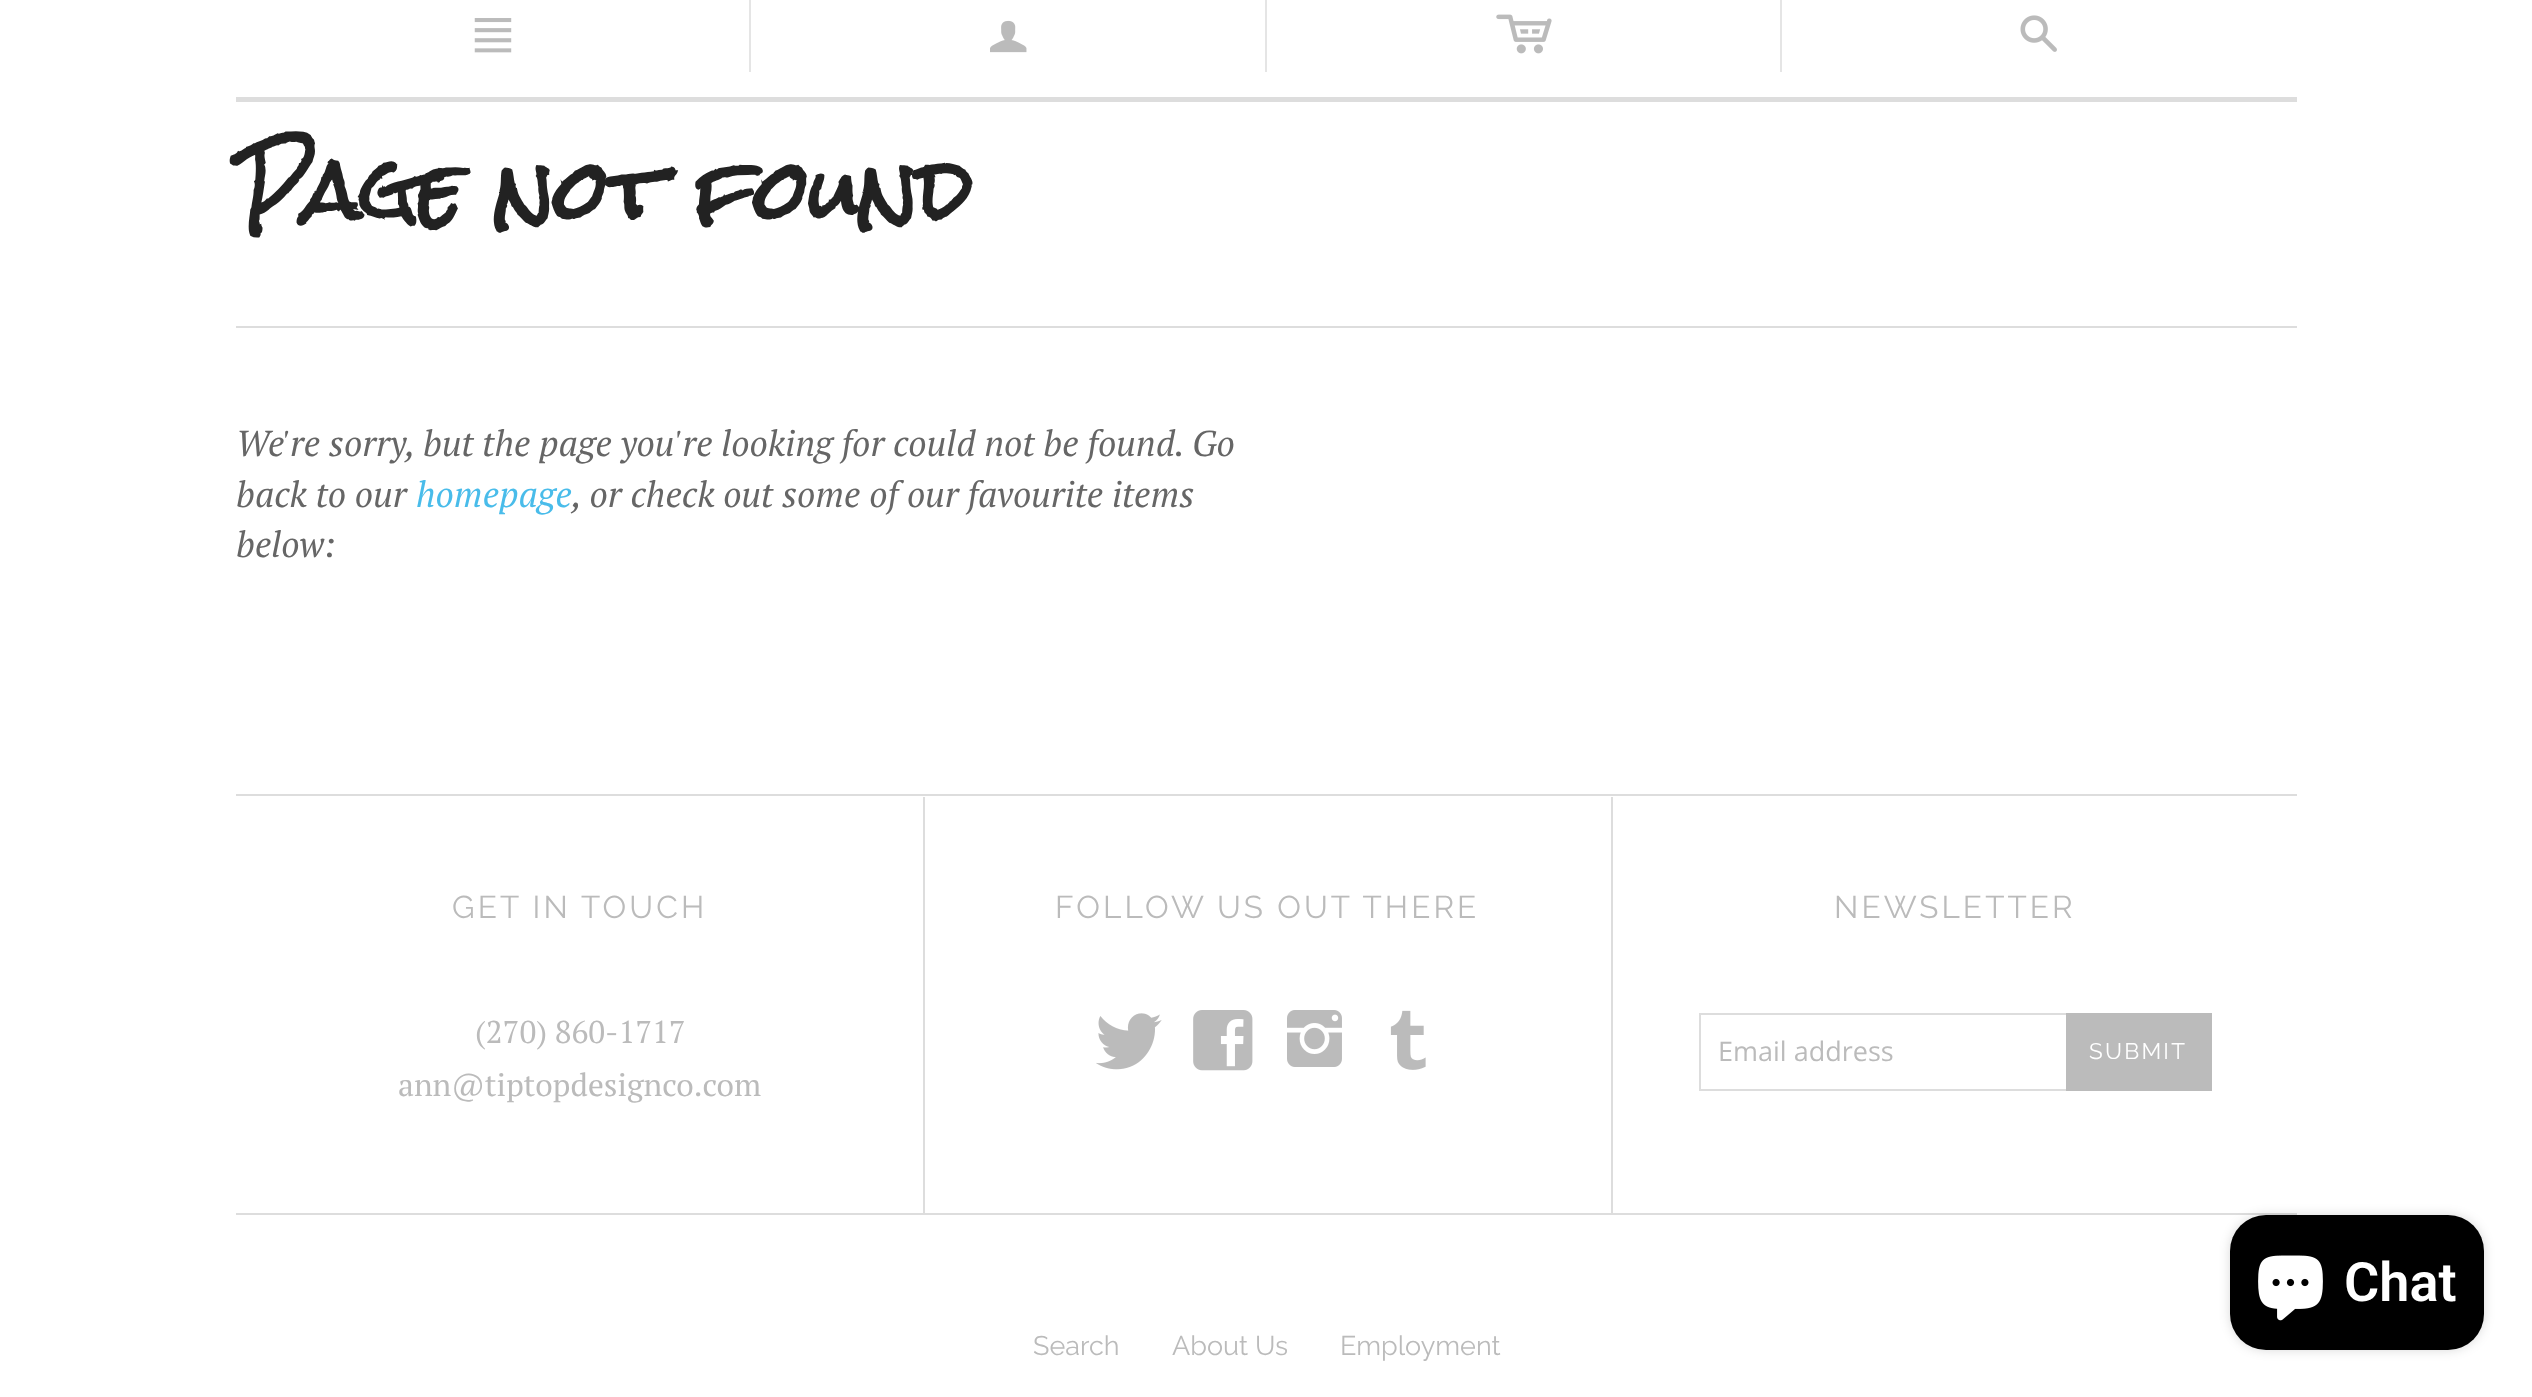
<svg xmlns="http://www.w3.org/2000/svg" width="2532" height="1397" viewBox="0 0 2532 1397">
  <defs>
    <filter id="blur1" x="-50%" y="-200%" width="200%" height="500%"><feGaussianBlur stdDeviation="5.5"/></filter>
  </defs>
  <rect width="100%" height="100%" fill="#ffffff"/>
  <rect x="236" y="97" width="2061" height="5" fill="#dddddd"/>
  <image x="474" y="18" width="38" height="35" href="img1.png"/>
  <rect x="749" y="0" width="2" height="72" fill="#e5e5e5"/>
  <image x="990" y="20" width="37" height="33" href="img2.png"/>
  <rect x="1265" y="0" width="2" height="72" fill="#e5e5e5"/>
  <image x="1496" y="14" width="56" height="40" href="img3.png"/>
  <rect x="1780" y="0" width="2" height="72" fill="#e5e5e5"/>
  <image x="2020" y="15" width="37" height="37" href="img4.png"/>
  <rect x="236" y="326" width="2061" height="2" fill="#dddddd"/>
  <text x="236" y="222" font-family="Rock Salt" font-size="78.75" font-weight="bold" fill="#222222">Page not found</text>
  <text x="236" y="456" font-family="PT Serif" font-size="36" font-style="italic" fill="#666666">We're sorry, but the page you're looking for could not be found. Go</text>
  <text x="236" y="507" font-family="PT Serif" font-size="36" font-style="italic" fill="#666666">back to our</text>
  <text x="416" y="507" font-family="PT Serif" font-size="36" font-style="italic" fill="#49bcea">homepage</text>
  <text x="572" y="507" font-family="PT Serif" font-size="36" font-style="italic" fill="#666666">, or check out some of our favourite items</text>
  <text x="236" y="557" font-family="PT Serif" font-size="36" font-style="italic" fill="#666666">below:</text>
  <rect x="236" y="794" width="2061" height="2" fill="#dddddd"/>
  <rect x="236" y="1213" width="2061" height="2" fill="#dddddd"/>
  <text x="452" y="918" font-family="Raleway" font-size="31.5" letter-spacing="3.1" fill="#bbbbbb">GET IN TOUCH</text>
  <text x="475" y="1043" font-family="PT Serif" font-size="31.5" fill="#bbbbbb">(270) 860-1717</text>
  <text x="398" y="1096" font-family="PT Serif" font-size="31.5" fill="#bbbbbb">ann@tiptopdesignco.com</text>
  <rect x="923" y="797" width="2" height="416" fill="#dddddd"/>
  <text x="1055" y="918" font-family="Raleway" font-size="31.5" letter-spacing="3.1" fill="#bbbbbb">FOLLOW US OUT THERE</text>
  <image x="1096" y="1013" width="66" height="57" href="img5.png"/>
  <image x="1193" y="1010" width="60" height="61" href="img6.png"/>
  <image x="1287" y="1010" width="55" height="57" href="img7.png"/>
  <image x="1390" y="1010" width="36" height="60" href="img8.png"/>
  <rect x="1611" y="797" width="2" height="416" fill="#dddddd"/>
  <text x="1834" y="918" font-family="Raleway" font-size="31.5" letter-spacing="3.1" fill="#bbbbbb">NEWSLETTER</text>
  <rect x="1700" y="1014" width="511" height="76" fill="none" stroke="#dddddd" stroke-width="2"/>
  <text x="1718" y="1061" font-family="Open Sans" font-size="27" fill="#bbbbbb">Email address</text>
  <rect x="2066" y="1013" width="146" height="78" fill="#bbbbbb"/>
  <text x="2089" y="1059" font-family="Raleway" font-size="22.5" letter-spacing="2.25" fill="#ffffff">SUBMIT</text>
  <text x="1033" y="1355" font-family="Raleway" font-size="27" fill="#bbbbbb">Search</text>
  <text x="1172" y="1355" font-family="Raleway" font-size="27" fill="#bbbbbb">About Us</text>
  <text x="1340" y="1355" font-family="Raleway" font-size="27" fill="#bbbbbb">Employment</text>
  <rect x="2230" y="1215" width="254" height="135" rx="36" fill="#000000" fill-opacity="0.15" filter="url(#blur1)"/>
  <rect x="2230" y="1215" width="254" height="135" rx="36" fill="#000000"/>
  <image x="2258" y="1255" width="65" height="66" href="img9.png"/>
  <text x="2344" y="1301" font-family="Roboto" font-size="54" font-weight="600" fill="#ffffff">Chat</text>
</svg>
